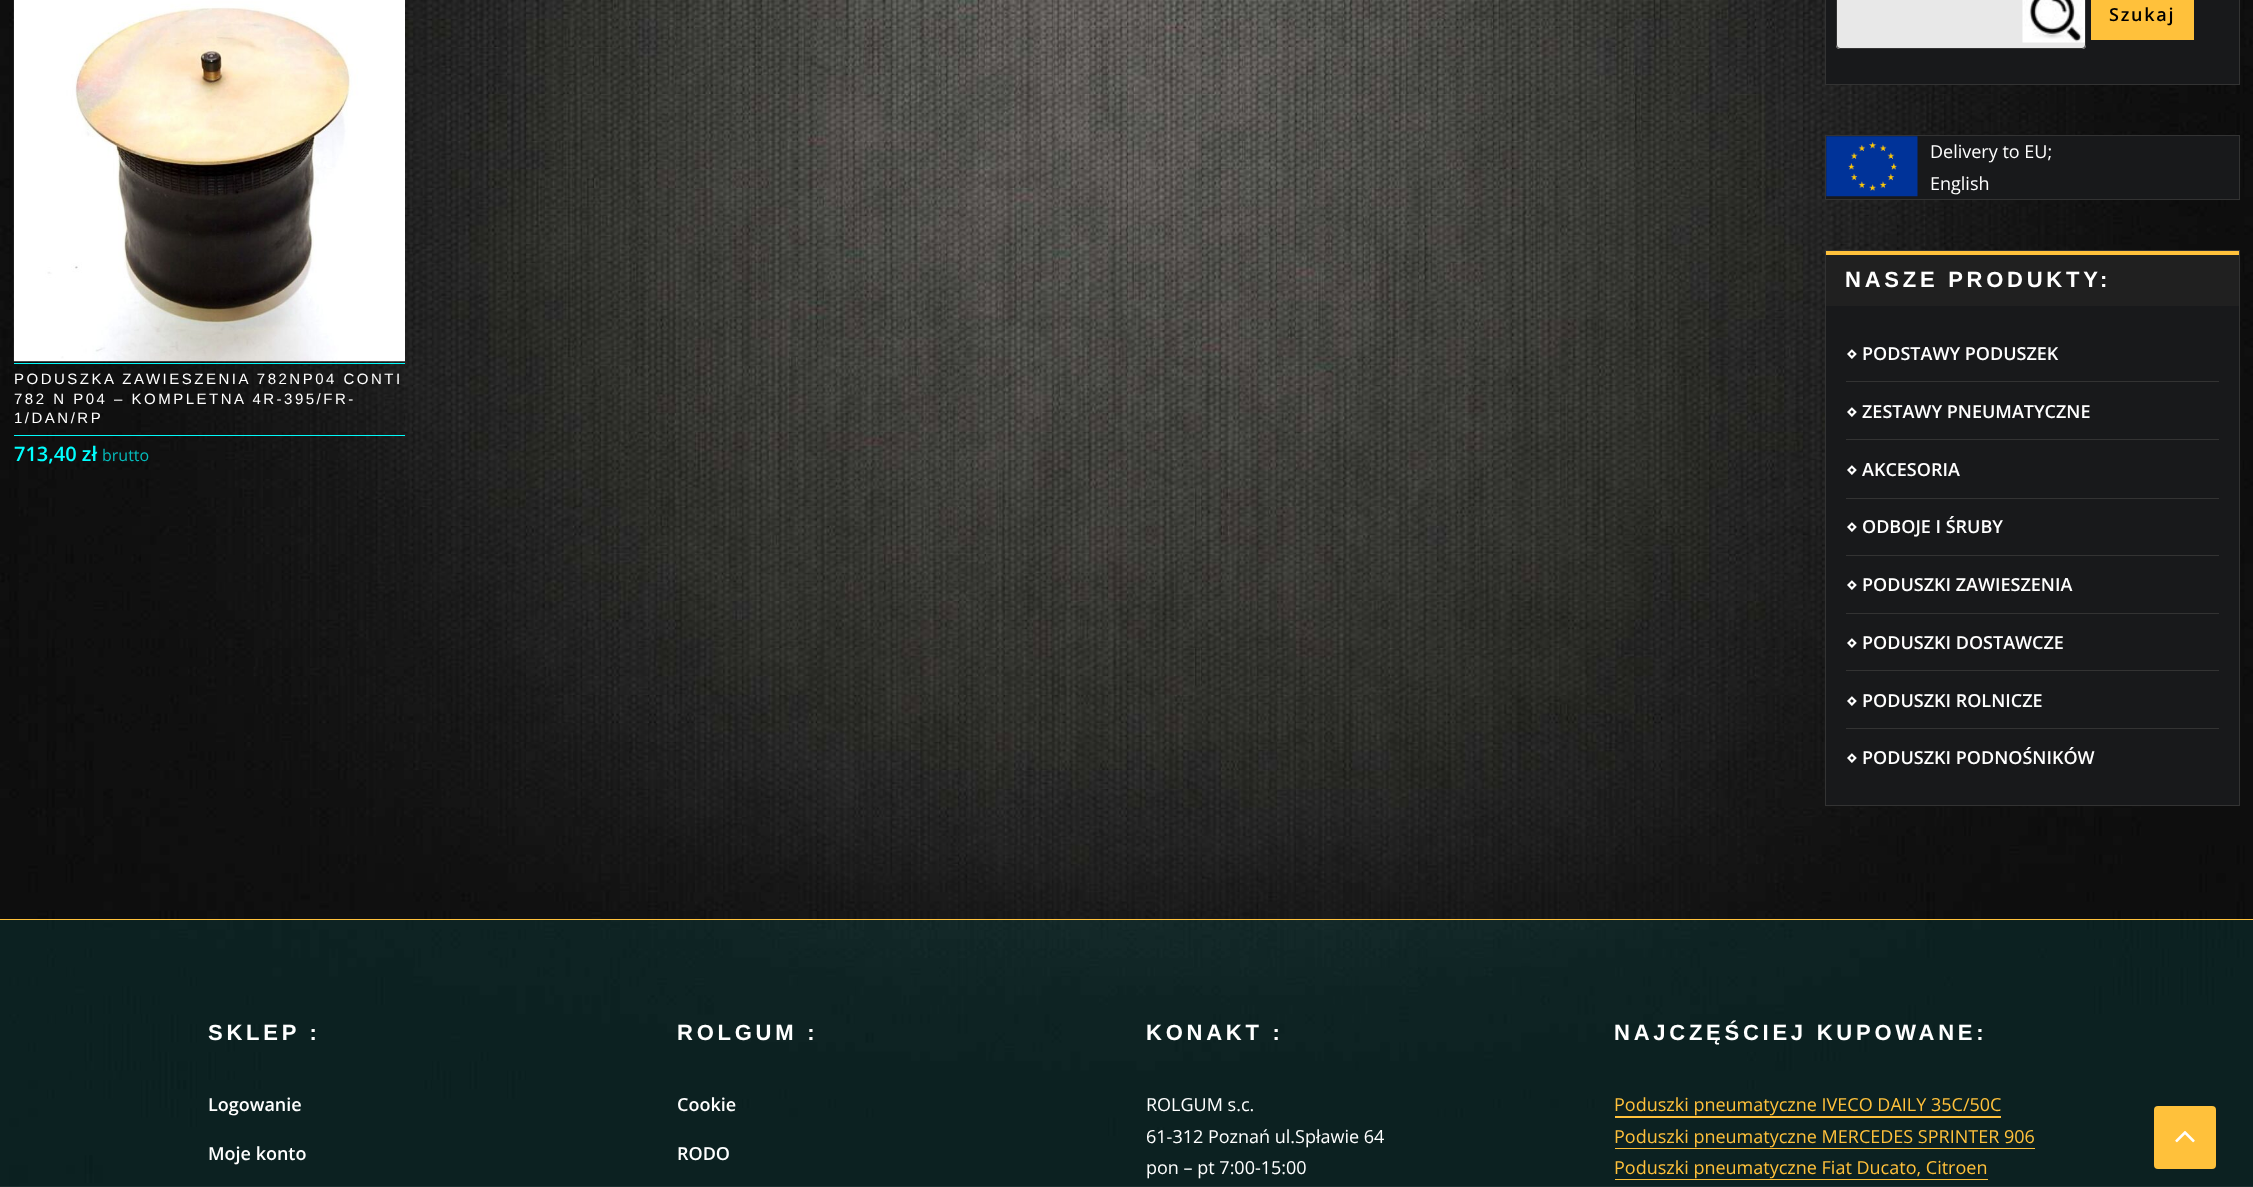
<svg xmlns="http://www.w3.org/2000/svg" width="2253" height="1187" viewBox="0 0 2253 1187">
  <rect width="100%" height="100%" fill="#ffffff"/>
  <image x="0" y="0" width="2253" height="1187" href="img1.png"/>
  <image x="13" y="0" width="392" height="362" href="img2.png"/>
  <rect x="14" y="363" width="391" height="1" fill="#02f9f9"/>
  <rect x="14" y="435" width="391" height="1" fill="#02f9f9"/>
  <text x="14" y="384" font-family="Liberation Sans" font-size="15" letter-spacing="2.5" fill="#ffffff">PODUSZKA ZAWIESZENIA 782NP04 CONTI</text>
  <text x="14" y="404" font-family="Liberation Sans" font-size="15" letter-spacing="2.5" fill="#ffffff">782 N P04 – KOMPLETNA 4R-395/FR-</text>
  <text x="14" y="423" font-family="Liberation Sans" font-size="15" letter-spacing="2.5" fill="#ffffff">1/DAN/RP</text>
  <text x="14" y="461" font-family="Open Sans" font-size="20" font-weight="600" fill="#01ffff">713,40 zł</text>
  <text x="102" y="461" font-family="Open Sans" font-size="16" fill="#05bcbc">brutto</text>
  <rect x="1825.5" y="-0.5" width="414" height="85" fill="#18191b" stroke="#333333"/>
  <rect x="1836" y="-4" width="250" height="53" rx="4" fill="#e8e8e8"/>
  <image x="2022" y="0" width="63" height="43" href="img3.png"/>
  <rect x="1836.5" y="-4.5" width="249" height="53" rx="3.5" fill="none" stroke="#333333"/>
  <rect x="2091" y="0" width="103" height="40" fill="#ffc13b"/>
  <text x="2109" y="21" font-family="Open Sans" font-size="18" font-weight="600" letter-spacing="1.75" fill="#000000">Szukaj</text>
  <rect x="1825.5" y="135.5" width="414" height="64" fill="#18191b" stroke="#333333"/>
  <image x="1826" y="136" width="92" height="61" href="img4.png"/>
  <text x="1930" y="158" font-family="Open Sans" font-size="18" fill="#ffffff">Delivery to EU;</text>
  <text x="1930" y="190" font-family="Open Sans" font-size="18" fill="#ffffff">English</text>
  <rect x="1826" y="306" width="413" height="499" fill="#18191b"/>
  <rect x="1825.5" y="250.5" width="414" height="555" fill="none" stroke="#333333"/>
  <rect x="1826" y="255" width="413" height="51" fill="#202020"/>
  <rect x="1826" y="251" width="413" height="4" fill="#ffc13b"/>
  <text x="1845" y="287" font-family="Liberation Sans" font-size="22" font-weight="bold" letter-spacing="3.75" fill="#ffffff">NASZE PRODUKTY:</text>
  <rect x="1846" y="381" width="373" height="1" fill="#333333"/>
  <text x="1846" y="360" font-family="DejaVu Sans" font-size="18" font-weight="bold" fill="#ffffff">⋄</text>
  <text x="1862" y="360" font-family="Open Sans" font-size="18" font-weight="600" fill="#ffffff">PODSTAWY PODUSZEK</text>
  <rect x="1846" y="439" width="373" height="1" fill="#333333"/>
  <text x="1846" y="418" font-family="DejaVu Sans" font-size="18" font-weight="bold" fill="#ffffff">⋄</text>
  <text x="1862" y="418" font-family="Open Sans" font-size="18" font-weight="600" fill="#ffffff">ZESTAWY PNEUMATYCZNE</text>
  <rect x="1846" y="498" width="373" height="1" fill="#333333"/>
  <text x="1846" y="476" font-family="DejaVu Sans" font-size="18" font-weight="bold" fill="#ffffff">⋄</text>
  <text x="1862" y="476" font-family="Open Sans" font-size="18" font-weight="600" fill="#ffffff">AKCESORIA</text>
  <rect x="1846" y="555" width="373" height="1" fill="#333333"/>
  <text x="1846" y="533" font-family="DejaVu Sans" font-size="18" font-weight="bold" fill="#ffffff">⋄</text>
  <text x="1862" y="533" font-family="Open Sans" font-size="18" font-weight="600" fill="#ffffff">ODBOJE I ŚRUBY</text>
  <rect x="1846" y="613" width="373" height="1" fill="#333333"/>
  <text x="1846" y="591" font-family="DejaVu Sans" font-size="18" font-weight="bold" fill="#ffffff">⋄</text>
  <text x="1862" y="591" font-family="Open Sans" font-size="18" font-weight="600" fill="#ffffff">PODUSZKI ZAWIESZENIA</text>
  <rect x="1846" y="670" width="373" height="1" fill="#333333"/>
  <text x="1846" y="649" font-family="DejaVu Sans" font-size="18" font-weight="bold" fill="#ffffff">⋄</text>
  <text x="1862" y="649" font-family="Open Sans" font-size="18" font-weight="600" fill="#ffffff">PODUSZKI DOSTAWCZE</text>
  <rect x="1846" y="728" width="373" height="1" fill="#333333"/>
  <text x="1846" y="707" font-family="DejaVu Sans" font-size="18" font-weight="bold" fill="#ffffff">⋄</text>
  <text x="1862" y="707" font-family="Open Sans" font-size="18" font-weight="600" fill="#ffffff">PODUSZKI ROLNICZE</text>
  <text x="1846" y="764" font-family="DejaVu Sans" font-size="18" font-weight="bold" fill="#ffffff">⋄</text>
  <text x="1862" y="764" font-family="Open Sans" font-size="18" font-weight="600" fill="#ffffff">PODUSZKI PODNOŚNIKÓW</text>
  <rect x="0" y="920" width="2253" height="267" fill="#0b5050" fill-opacity="0.3"/>
  <rect x="0" y="919" width="2253" height="1" fill="#ffc13b"/>
  <text x="208" y="1040" font-family="Liberation Sans" font-size="22" font-weight="bold" letter-spacing="3.75" fill="#ffffff">SKLEP :</text>
  <text x="208" y="1111" font-family="Open Sans" font-size="18" font-weight="600" fill="#ffffff">Logowanie</text>
  <text x="208" y="1160" font-family="Open Sans" font-size="18" font-weight="600" fill="#ffffff">Moje konto</text>
  <text x="677" y="1040" font-family="Liberation Sans" font-size="22" font-weight="bold" letter-spacing="3.75" fill="#ffffff">ROLGUM :</text>
  <text x="677" y="1111" font-family="Open Sans" font-size="18" font-weight="600" fill="#ffffff">Cookie</text>
  <text x="677" y="1160" font-family="Open Sans" font-size="18" font-weight="600" fill="#ffffff">RODO</text>
  <text x="1146" y="1040" font-family="Liberation Sans" font-size="22" font-weight="bold" letter-spacing="3.75" fill="#ffffff">KONAKT :</text>
  <text x="1146" y="1111" font-family="Open Sans" font-size="18" fill="#ffffff">ROLGUM s.c.</text>
  <text x="1146" y="1143" font-family="Open Sans" font-size="18" fill="#ffffff">61-312 Poznań ul.Spławie 64</text>
  <text x="1146" y="1174" font-family="Open Sans" font-size="18" fill="#ffffff">pon – pt 7:00-15:00</text>
  <text x="1614" y="1040" font-family="Liberation Sans" font-size="22" font-weight="bold" letter-spacing="3.75" fill="#ffffff">NAJCZĘŚCIEJ KUPOWANE:</text>
  <text x="1614" y="1111" font-family="Open Sans" font-size="18" fill="#ffc13b">Poduszki pneumatyczne IVECO DAILY 35C/50C</text>
  <rect x="1615" y="1116" width="386" height="2" fill="#ffc13b"/>
  <text x="1614" y="1143" font-family="Open Sans" font-size="18" fill="#ffc13b">Poduszki pneumatyczne MERCEDES SPRINTER 906</text>
  <rect x="1615" y="1148" width="420" height="1" fill="#ffc13b"/>
  <text x="1614" y="1174" font-family="Open Sans" font-size="18" fill="#ffc13b">Poduszki pneumatyczne Fiat Ducato, Citroen</text>
  <path d="M1615 1179V1180H1988V1156V1179Z" fill="#ffc13b"/>
  <rect x="2154" y="1106" width="62" height="63" rx="4" fill="#ffc13b"/>
  <image x="2175" y="1131" width="20" height="12" href="img5.png"/>
</svg>
